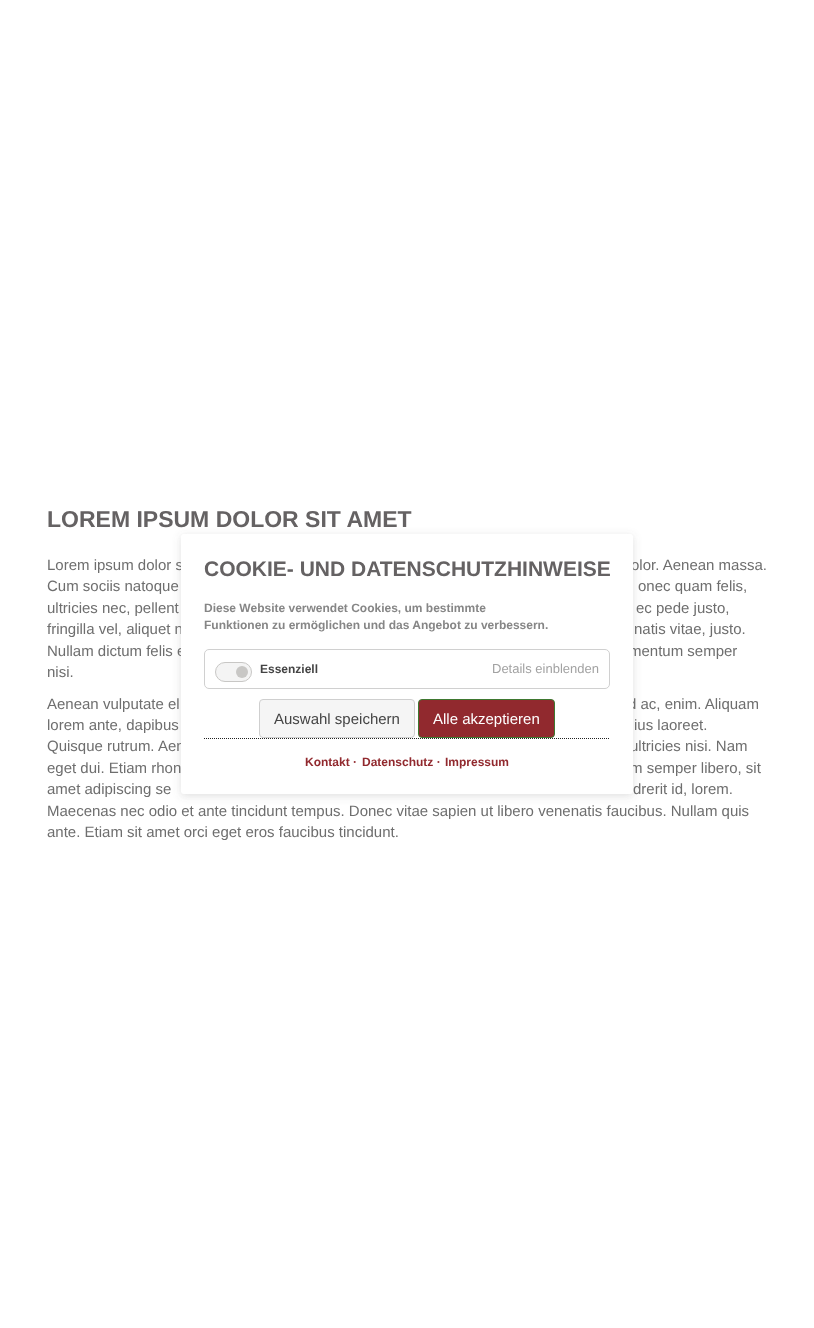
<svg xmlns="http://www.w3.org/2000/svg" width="814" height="1328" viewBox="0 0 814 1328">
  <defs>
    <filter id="blur1" x="-50%" y="-200%" width="200%" height="500%"><feGaussianBlur stdDeviation="4"/></filter>
  </defs>
  <rect width="100%" height="100%" fill="#ffffff"/>
  <text x="47" y="527" font-family="Liberation Sans" font-size="23" font-weight="bold" fill="#656263">LOREM IPSUM DOLOR SIT AMET</text>
  <text x="47" y="570" font-family="Liberation Sans" font-size="15" fill="#6e6e6e">Lorem ipsum dolor s</text>
  <text x="631" y="570" font-family="Liberation Sans" font-size="15" fill="#6e6e6e">olor. Aenean massa.</text>
  <text x="47" y="591" font-family="Liberation Sans" font-size="15" fill="#6e6e6e">Cum sociis natoque</text>
  <text x="638" y="591" font-family="Liberation Sans" font-size="15" fill="#6e6e6e">onec quam felis,</text>
  <text x="47" y="613" font-family="Liberation Sans" font-size="15" fill="#6e6e6e">ultricies nec, pellent</text>
  <text x="636" y="613" font-family="Liberation Sans" font-size="15" fill="#6e6e6e">ec pede justo,</text>
  <text x="47" y="634" font-family="Liberation Sans" font-size="15" fill="#6e6e6e">fringilla vel, aliquet n</text>
  <text x="634" y="634" font-family="Liberation Sans" font-size="15" fill="#6e6e6e">natis vitae, justo.</text>
  <text x="47" y="656" font-family="Liberation Sans" font-size="15" fill="#6e6e6e">Nullam dictum felis e</text>
  <text x="629" y="656" font-family="Liberation Sans" font-size="15" fill="#6e6e6e">mentum semper</text>
  <text x="47" y="677" font-family="Liberation Sans" font-size="15" fill="#6e6e6e">nisi.</text>
  <text x="47" y="709" font-family="Liberation Sans" font-size="15" fill="#6e6e6e">Aenean vulputate el</text>
  <text x="628" y="709" font-family="Liberation Sans" font-size="15" fill="#6e6e6e">d ac, enim. Aliquam</text>
  <text x="47" y="730" font-family="Liberation Sans" font-size="15" fill="#6e6e6e">lorem ante, dapibus</text>
  <text x="634" y="730" font-family="Liberation Sans" font-size="15" fill="#6e6e6e">ius laoreet.</text>
  <text x="47" y="751" font-family="Liberation Sans" font-size="15" fill="#6e6e6e">Quisque rutrum. Aen</text>
  <text x="630" y="751" font-family="Liberation Sans" font-size="15" fill="#6e6e6e">ultricies nisi. Nam</text>
  <text x="47" y="773" font-family="Liberation Sans" font-size="15" fill="#6e6e6e">eget dui. Etiam rhon</text>
  <text x="630" y="773" font-family="Liberation Sans" font-size="15" fill="#6e6e6e">m semper libero, sit</text>
  <text x="47" y="794" font-family="Liberation Sans" font-size="15" fill="#6e6e6e">amet adipiscing se</text>
  <text x="633" y="794" font-family="Liberation Sans" font-size="15" fill="#6e6e6e">drerit id, lorem.</text>
  <text x="47" y="816" font-family="Liberation Sans" font-size="15" fill="#6e6e6e">Maecenas nec odio et ante tincidunt tempus. Donec vitae sapien ut libero venenatis faucibus. Nullam quis</text>
  <text x="47" y="837" font-family="Liberation Sans" font-size="15" fill="#6e6e6e">ante. Etiam sit amet orci eget eros faucibus tincidunt.</text>
  <rect x="181" y="536" width="452" height="260" rx="3" fill="#636363" fill-opacity="0.2" filter="url(#blur1)"/>
  <rect x="181" y="534" width="452" height="260" rx="3" fill="#ffffff"/>
  <text x="204" y="576" font-family="Liberation Sans" font-size="21" font-weight="bold" fill="#656263">COOKIE- UND DATENSCHUTZHINWEISE</text>
  <text x="204" y="612" font-family="Liberation Sans" font-size="12" font-weight="bold" fill="#868686">Diese Website verwendet Cookies, um bestimmte</text>
  <text x="204" y="629" font-family="Liberation Sans" font-size="12" font-weight="bold" fill="#868686">Funktionen zu ermöglichen und das Angebot zu verbessern.</text>
  <rect x="204.5" y="649.5" width="405" height="39" rx="4.5" fill="none" stroke="#d0d0d0"/>
  <rect x="215.5" y="662.5" width="36" height="19" rx="9.5" fill="#f4f4f4" stroke="#c8c7c5"/>
  <text x="260" y="673" font-family="Liberation Sans" font-size="12" font-weight="bold" fill="#444444">Essenziell</text>
  <circle cx="242" cy="672" r="6" fill="#c8c7c5"/>
  <text x="492" y="673" font-family="Liberation Sans" font-size="13" fill="#a2a2a2">Details einblenden</text>
  <path d="M204 738.5H610" fill="none" stroke="#222222" stroke-dasharray="1 1"/>
  <rect x="259.5" y="699.5" width="155" height="38" rx="3.5" fill="#f5f5f5" stroke="#cfcfcf"/>
  <text x="274" y="724" font-family="Liberation Sans" font-size="15" fill="#444444">Auswahl speichern</text>
  <rect x="418.5" y="699.5" width="136" height="38" rx="3.5" fill="#91292e" stroke="#3e7830"/>
  <text x="433" y="724" font-family="Liberation Sans" font-size="15" fill="#ffffff">Alle akzeptieren</text>
  <text x="305" y="766" font-family="Liberation Sans" font-size="12" font-weight="bold" fill="#91292e">Kontakt ·</text>
  <text x="362" y="766" font-family="Liberation Sans" font-size="12" font-weight="bold" fill="#91292e">Datenschutz ·</text>
  <text x="445" y="766" font-family="Liberation Sans" font-size="12" font-weight="bold" fill="#91292e">Impressum</text>
</svg>
